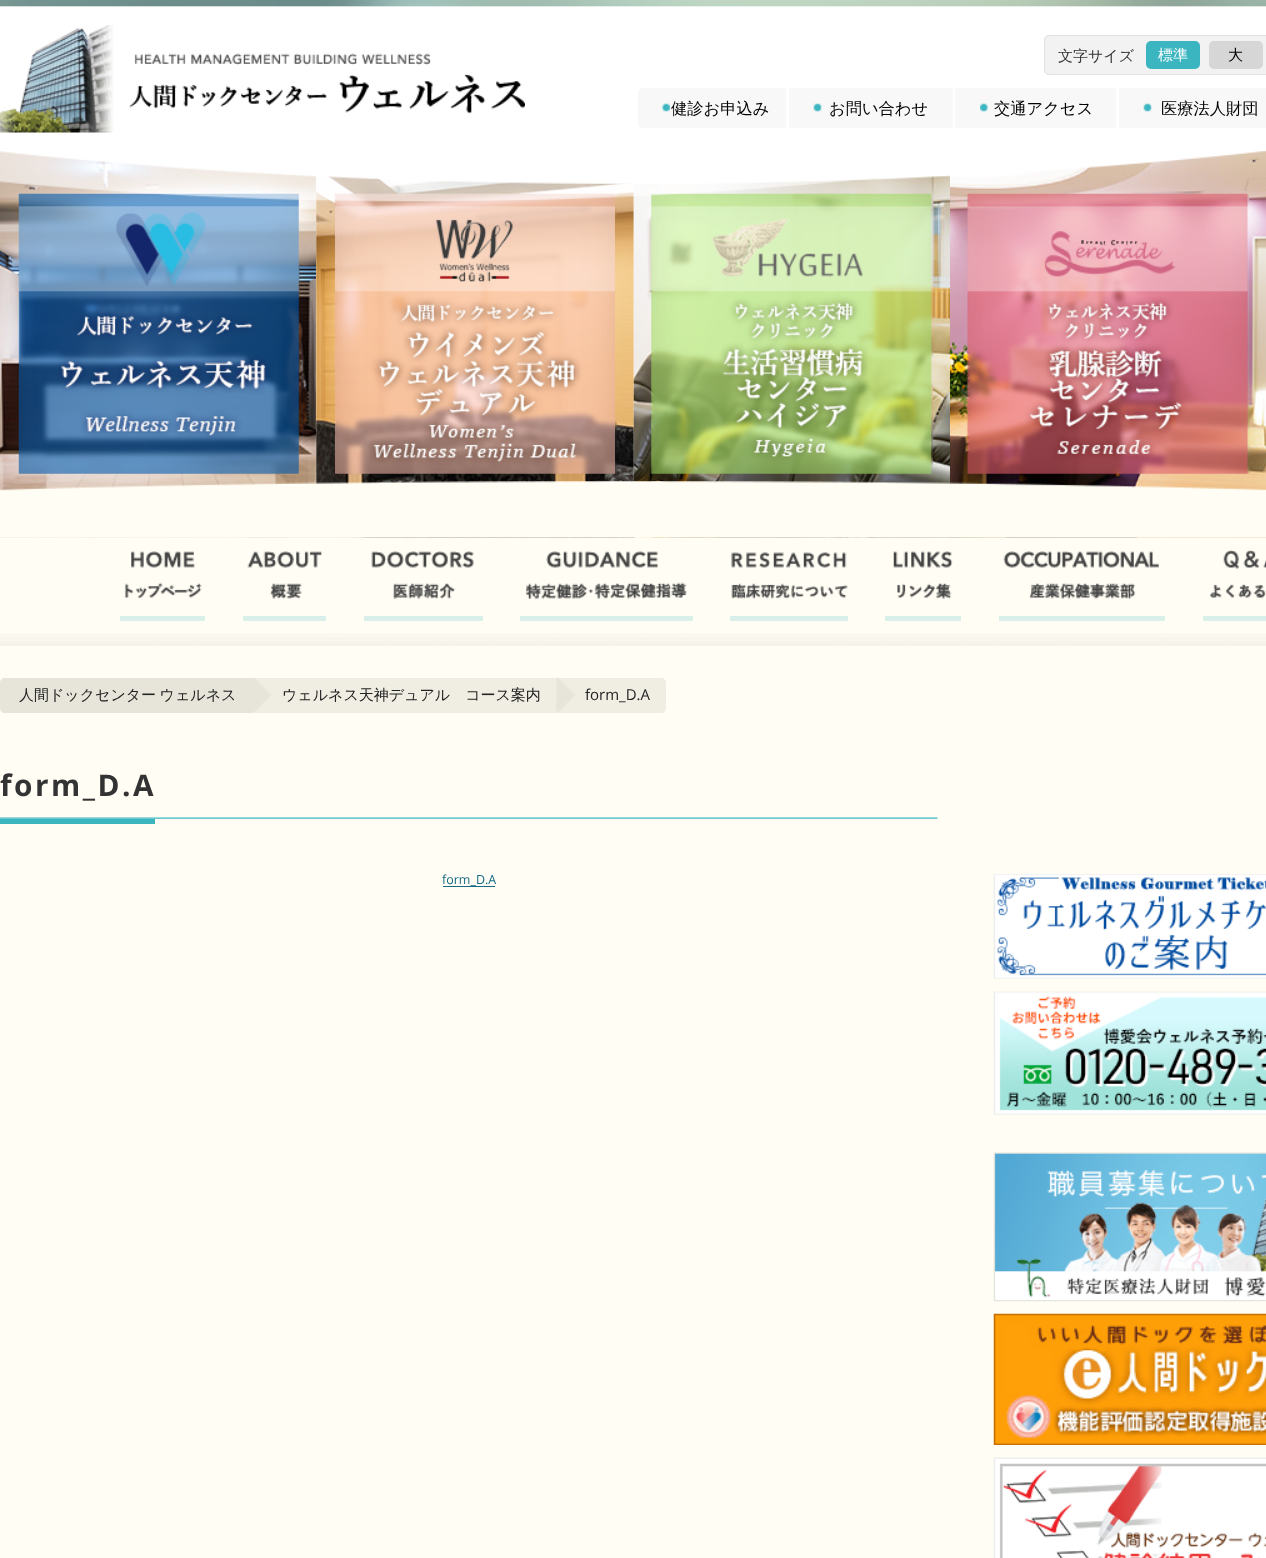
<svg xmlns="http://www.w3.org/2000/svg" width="1266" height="1558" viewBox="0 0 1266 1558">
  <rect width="100%" height="100%" fill="#fffdf4"/>
  <image x="0" y="151" width="317" height="387" href="img6.png"/>
  <image x="18" y="193" width="281" height="281" href="img7.png"/>
  <image x="316" y="176" width="318" height="362" href="img8.png"/>
  <image x="335" y="193" width="280" height="281" href="img9.png"/>
  <image x="633" y="174" width="317" height="364" href="img10.png"/>
  <image x="651" y="193" width="281" height="281" href="img11.png"/>
  <image x="950" y="149" width="316" height="389" href="img12.png"/>
  <image x="967" y="193" width="281" height="281" href="img13.png"/>
  <image x="0" y="0" width="1266" height="202" href="img1.png"/>
  <image x="0" y="25" width="525" height="108" href="img2.png"/>
  <path d="M1049 35H1266V75H1049C1046 75 1044 73 1044 70V40C1044 37 1046 35 1049 35Z" fill="#f2f2f2"/>
  <rect x="1044.5" y="35.5" width="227" height="39" rx="4.5" fill="none" stroke="#e1e1e1"/>
  <text x="1058" y="61" font-family="WenQuanYi Zen Hei" font-size="15" font-weight="500" fill="#333333">文字サイズ</text>
  <rect x="1146" y="41" width="54" height="28" rx="5" fill="#3bb5c0"/>
  <text x="1158" y="60" font-family="WenQuanYi Zen Hei" font-size="15" font-weight="500" fill="#ffffff">標準</text>
  <rect x="1209" y="41" width="54" height="28" rx="5" fill="#d6d6d6"/>
  <text x="1228" y="60" font-family="WenQuanYi Zen Hei" font-size="15" font-weight="500" fill="#000000">大</text>
  <path d="M643 88H786V128H643C640 128 638 126 638 123V93C638 90 640 88 643 88Z" fill="#f8f8f8"/>
  <image x="662" y="103" width="8" height="9" href="img3.png"/>
  <text x="671" y="114" font-family="WenQuanYi Zen Hei" font-size="16.25" font-weight="500" fill="#000000">健診お申込み</text>
  <rect x="789" y="88" width="164" height="40" fill="#f8f8f8"/>
  <image x="813" y="103" width="9" height="9" href="img4.png"/>
  <text x="829" y="114" font-family="WenQuanYi Zen Hei" font-size="16.25" font-weight="500" fill="#000000">お問い合わせ</text>
  <rect x="955" y="88" width="161" height="40" fill="#f8f8f8"/>
  <image x="980" y="103" width="8" height="9" href="img5.png"/>
  <text x="994" y="114" font-family="WenQuanYi Zen Hei" font-size="16.25" font-weight="500" fill="#000000">交通アクセス</text>
  <rect x="1119" y="88" width="147" height="40" fill="#f8f8f8"/>
  <image x="1143" y="103" width="9" height="9" href="img4.png"/>
  <text x="1161" y="114" word-spacing="-1" font-family="WenQuanYi Zen Hei" font-size="16.25" font-weight="500" fill="#000000">医療法人財団</text>
  <image x="0" y="481" width="1266" height="57" href="img14.png"/>
  <image x="0" y="633" width="1266" height="13" href="img15.png"/>
  <rect x="120" y="616" width="85" height="5" fill="#d8efea"/>
  <image x="124" y="551" width="78" height="48" href="img16.png"/>
  <rect x="243" y="616" width="83" height="5" fill="#d8efea"/>
  <image x="247" y="551" width="75" height="48" href="img17.png"/>
  <rect x="364" y="616" width="119" height="5" fill="#d8efea"/>
  <image x="371" y="551" width="103" height="48" href="img18.png"/>
  <rect x="520" y="616" width="173" height="5" fill="#d8efea"/>
  <image x="526" y="551" width="161" height="48" href="img19.png"/>
  <rect x="730" y="616" width="118" height="5" fill="#d8efea"/>
  <image x="731" y="552" width="117" height="47" href="img20.png"/>
  <rect x="885" y="616" width="76" height="5" fill="#d8efea"/>
  <image x="893" y="551" width="60" height="48" href="img21.png"/>
  <rect x="999" y="616" width="166" height="5" fill="#d8efea"/>
  <image x="1003" y="551" width="156" height="48" href="img22.png"/>
  <rect x="1203" y="616" width="63" height="5" fill="#d8efea"/>
  <image x="1209" y="550" width="57" height="48" href="img23.png"/>
  <path d="M5 678H253V713H5C2 713 0 711 0 708V683C0 680 2 678 5 678Z" fill="#e7e5da"/>
  <text x="19" y="700" word-spacing="-1" font-family="WenQuanYi Zen Hei" font-size="15" font-weight="500" fill="#222222">人間ドックセンター ウェルネス</text>
  <rect x="253" y="678" width="303" height="35" fill="#f0eee3"/>
  <image x="253" y="677" width="18" height="35" href="img24.png"/>
  <text x="282" y="700" font-family="WenQuanYi Zen Hei" font-size="15" font-weight="500" fill="#222222">ウェルネス天神デュアル　コース案内</text>
  <path d="M556 678H661C664 678 666 680 666 683V708C666 711 664 713 661 713H556Z" fill="#f0eee3"/>
  <image x="556" y="677" width="19" height="35" href="img25.png"/>
  <text x="585" y="700" font-family="Open Sans" font-size="15" fill="#222222">form_D.A</text>
  <image x="0" y="817" width="938" height="2" href="img26.png"/>
  <rect x="0" y="819" width="155" height="5" fill="#3bb5c0"/>
  <text x="0" y="796" font-family="Open Sans" font-size="29.75" font-weight="bold" letter-spacing="2.5" fill="#333333">form_D.A</text>
  <text x="442" y="884" font-family="Open Sans" font-size="12.5" fill="#176b85">form_D.A</text>
  <rect x="443" y="886" width="52" height="1" fill="#176b85"/>
  <image x="993" y="874" width="273" height="105" href="img27.png"/>
  <image x="993" y="991" width="273" height="124" href="img28.png"/>
  <image x="993" y="1152" width="273" height="150" href="img29.png"/>
  <image x="993" y="1313" width="273" height="132" href="img30.png"/>
  <image x="993" y="1457" width="273" height="101" href="img31.png"/>
</svg>
